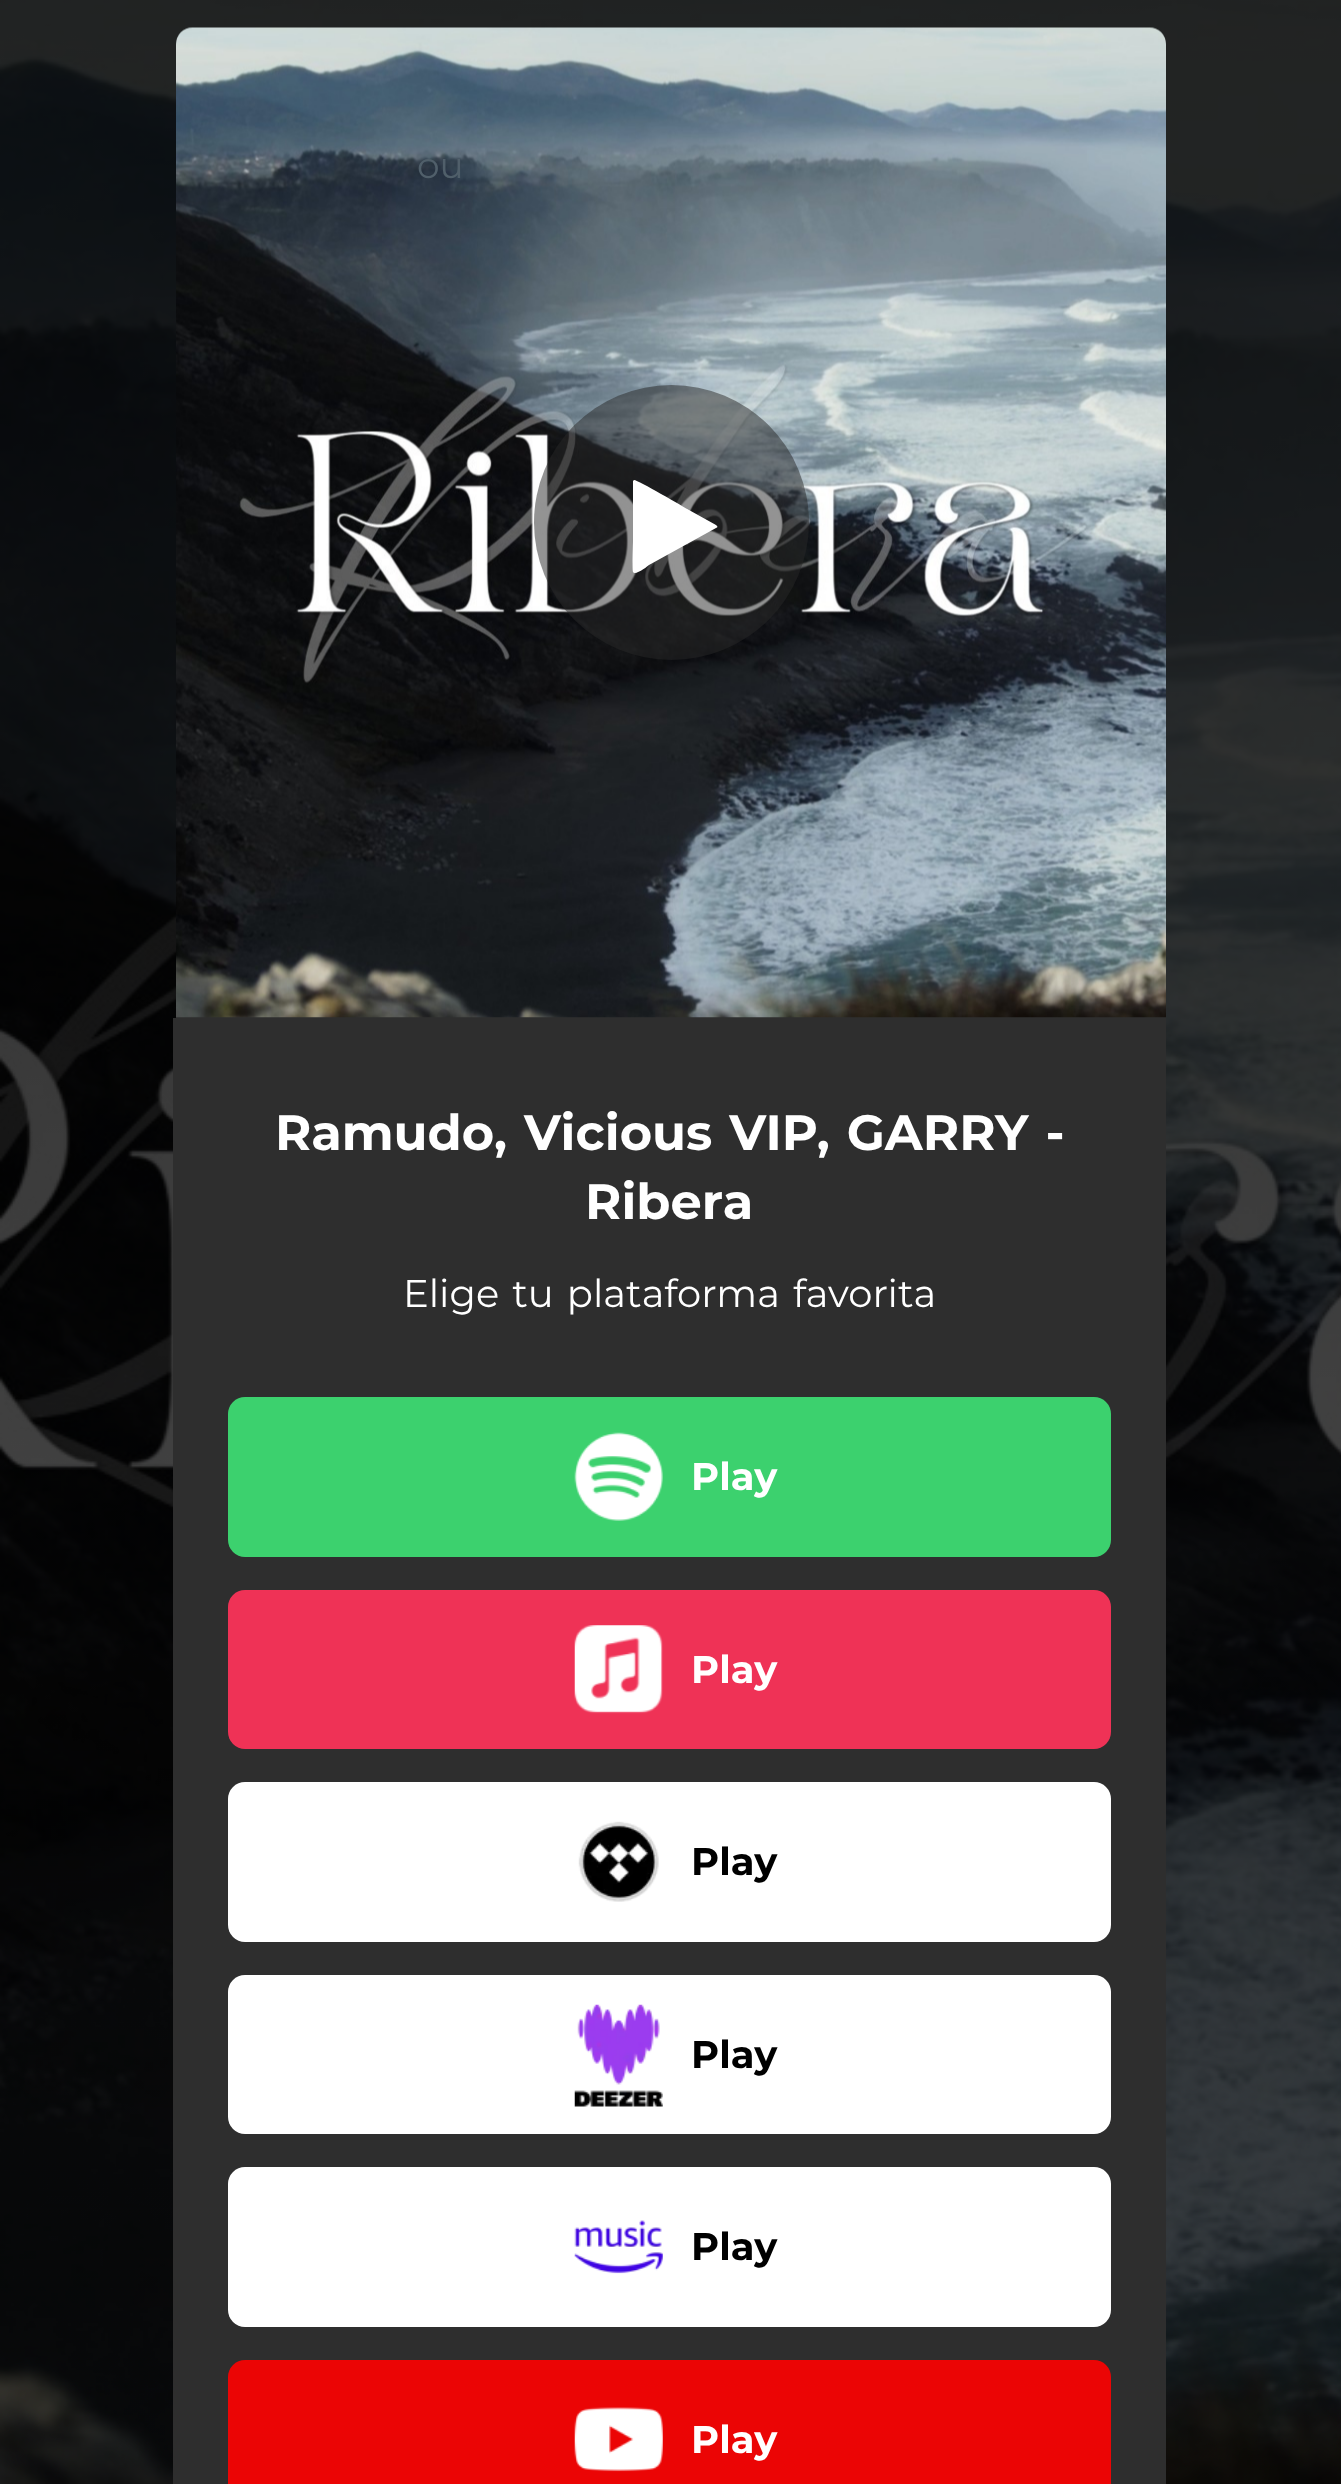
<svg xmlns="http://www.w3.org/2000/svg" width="1341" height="2484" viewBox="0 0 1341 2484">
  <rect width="100%" height="100%" fill="#ffffff"/>
  <image x="0" y="0" width="1341" height="2484" href="img1.png"/>
  <path d="M193 28H1149C1158.5 28 1166 35.5 1166 45V1018H176V45C176 35.5 183.5 28 193 28Z" fill="#2f2f2f"/>
  <image x="176" y="27" width="990" height="991" href="img2.png"/>
  <circle cx="671.5" cy="522.5" r="137.5" fill="#282828" fill-opacity="0.5"/>
  <path d="M716 528L649 565C648 566 635 576 633 572C632 570 633 544 633 541V481L634 480C636 479 684 507 689 510L716 525L717 526C718 527 717 528 716 528" fill="#ffffff"/>
  <text x="417" y="178" word-spacing="3" font-family="Montserrat" font-size="36" fill="#505f6a">ou</text>
  <rect x="173" y="1018" width="993" height="1466" fill="#2e2e2e"/>
  <text x="275" y="1150" word-spacing="3" font-family="Montserrat" font-size="49.5" font-weight="bold" fill="#ffffff">Ramudo, Vicious VIP, GARRY -</text>
  <text x="585" y="1219" font-family="Montserrat" font-size="49.5" font-weight="bold" fill="#ffffff">Ribera</text>
  <text x="403" y="1307" word-spacing="3" font-family="Montserrat" font-size="38.5" fill="#ffffff">Elige tu plataforma favorita</text>
  <rect x="228" y="1397" width="883" height="160" rx="17" fill="#3cd16e"/>
  <image x="574" y="1432" width="89" height="89" href="img3.png"/>
  <text x="691" y="1490" font-family="Montserrat" font-size="38.5" font-weight="bold" fill="#ffffff">Play</text>
  <rect x="228" y="1590" width="883" height="159" rx="17" fill="#ef3256"/>
  <image x="574" y="1625" width="89" height="89" href="img4.png"/>
  <text x="691" y="1683" font-family="Montserrat" font-size="38.5" font-weight="bold" fill="#ffffff">Play</text>
  <rect x="228" y="1782" width="883" height="160" rx="17" fill="#ffffff"/>
  <image x="578" y="1821" width="81" height="81" href="img5.png"/>
  <text x="691" y="1875" font-family="Montserrat" font-size="38.5" font-weight="bold" fill="#000000">Play</text>
  <rect x="228" y="1975" width="883" height="159" rx="17" fill="#ffffff"/>
  <image x="574" y="2004" width="89" height="103" href="img6.png"/>
  <text x="691" y="2068" font-family="Montserrat" font-size="38.5" font-weight="bold" fill="#000000">Play</text>
  <rect x="228" y="2167" width="883" height="160" rx="17" fill="#ffffff"/>
  <image x="574" y="2220" width="89" height="54" href="img7.png"/>
  <text x="691" y="2260" font-family="Montserrat" font-size="38.5" font-weight="bold" fill="#000000">Play</text>
  <rect x="228" y="2360" width="883" height="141" rx="17" fill="#eb0505"/>
  <image x="574" y="2407" width="89" height="65" href="img8.png"/>
  <text x="691" y="2453" font-family="Montserrat" font-size="38.5" font-weight="bold" fill="#ffffff">Play</text>
</svg>
